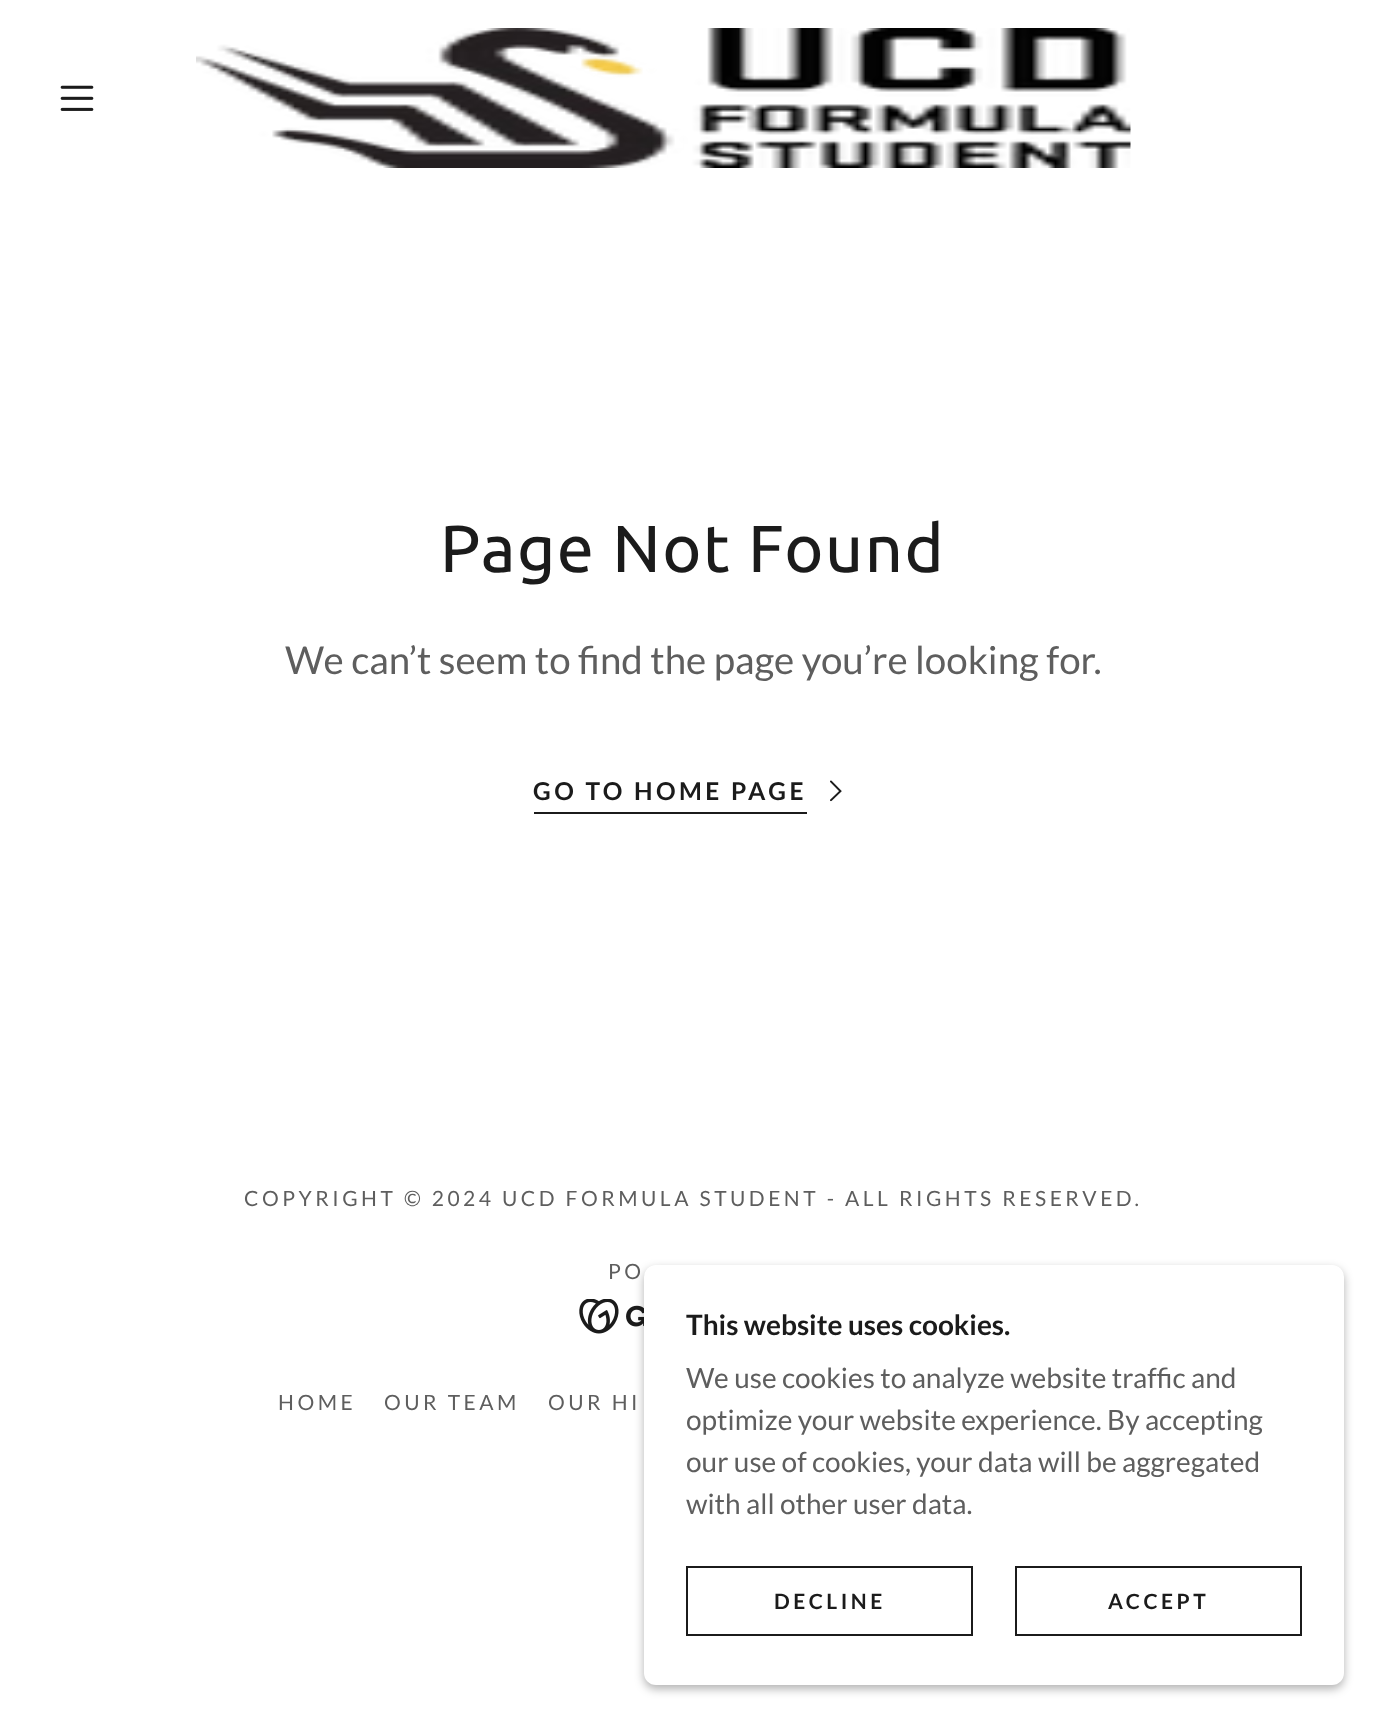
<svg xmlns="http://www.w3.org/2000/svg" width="1385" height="1727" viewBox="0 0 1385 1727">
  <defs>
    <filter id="blur1" x="-50%" y="-200%" width="200%" height="500%"><feGaussianBlur stdDeviation="5"/></filter>
  </defs>
  <rect width="100%" height="100%" fill="#ffffff"/>
  <image x="60" y="85" width="34" height="26" href="img1.png"/>
  <image x="196" y="28" width="935" height="140" href="img2.png"/>
  <text x="440" y="572" font-family="Ubuntu" font-size="66.5" letter-spacing="1.5" fill="#1b1b1b">Page Not Found</text>
  <text x="285" y="674" font-family="Lato" font-size="38.5" fill="#5e5e5e">We can’t seem to find the page you’re looking for.</text>
  <rect x="534" y="812" width="273" height="2" fill="#1b1b1b"/>
  <text x="533" y="800" font-family="Lato" font-size="24.5" font-weight="bold" letter-spacing="3.5" fill="#1b1b1b">GO TO HOME PAGE</text>
  <image x="830" y="780" width="12" height="22" href="img3.png"/>
  <text x="244" y="1206" font-family="Lato" font-size="21" letter-spacing="3.5" fill="#5e5e5e">COPYRIGHT © 2024 UCD FORMULA STUDENT - ALL RIGHTS RESERVED.</text>
  <text x="608" y="1279" font-family="Lato" font-size="21" letter-spacing="3.5" fill="#5e5e5e">PO</text>
  <image x="579" y="1299" width="65" height="35" href="img4.png"/>
  <text x="278" y="1410" font-family="Lato" font-size="21" letter-spacing="3.5" fill="#5e5e5e">HOME</text>
  <text x="384" y="1410" font-family="Lato" font-size="21" letter-spacing="3.5" fill="#5e5e5e">OUR TEAM</text>
  <text x="548" y="1410" font-family="Lato" font-size="21" letter-spacing="3.5" fill="#5e5e5e">OUR HI</text>
  <rect x="644" y="1269" width="700" height="420" rx="12" fill="#000000" fill-opacity="0.3" filter="url(#blur1)"/>
  <rect x="644" y="1265" width="700" height="420" rx="12" fill="#ffffff"/>
  <text x="686" y="1335" font-family="Lato" font-size="28" font-weight="bold" fill="#1b1b1b">This website uses cookies.</text>
  <text x="686" y="1388" font-family="Lato" font-size="28" fill="#5e5e5e">We use cookies to analyze website traffic and</text>
  <text x="686" y="1430" font-family="Lato" font-size="28" fill="#5e5e5e">optimize your website experience. By accepting</text>
  <text x="686" y="1472" font-family="Lato" font-size="28" fill="#5e5e5e">our use of cookies, your data will be aggregated</text>
  <text x="686" y="1514" font-family="Lato" font-size="28" fill="#5e5e5e">with all other user data.</text>
  <rect x="687" y="1567" width="285" height="68" fill="none" stroke="#1b1b1b" stroke-width="2"/>
  <text x="774" y="1609" font-family="Lato" font-size="21" font-weight="bold" letter-spacing="3.5" fill="#1b1b1b">DECLINE</text>
  <rect x="1016" y="1567" width="285" height="68" fill="none" stroke="#1b1b1b" stroke-width="2"/>
  <text x="1108" y="1609" font-family="Lato" font-size="21" font-weight="bold" letter-spacing="3.5" fill="#1b1b1b">ACCEPT</text>
</svg>
